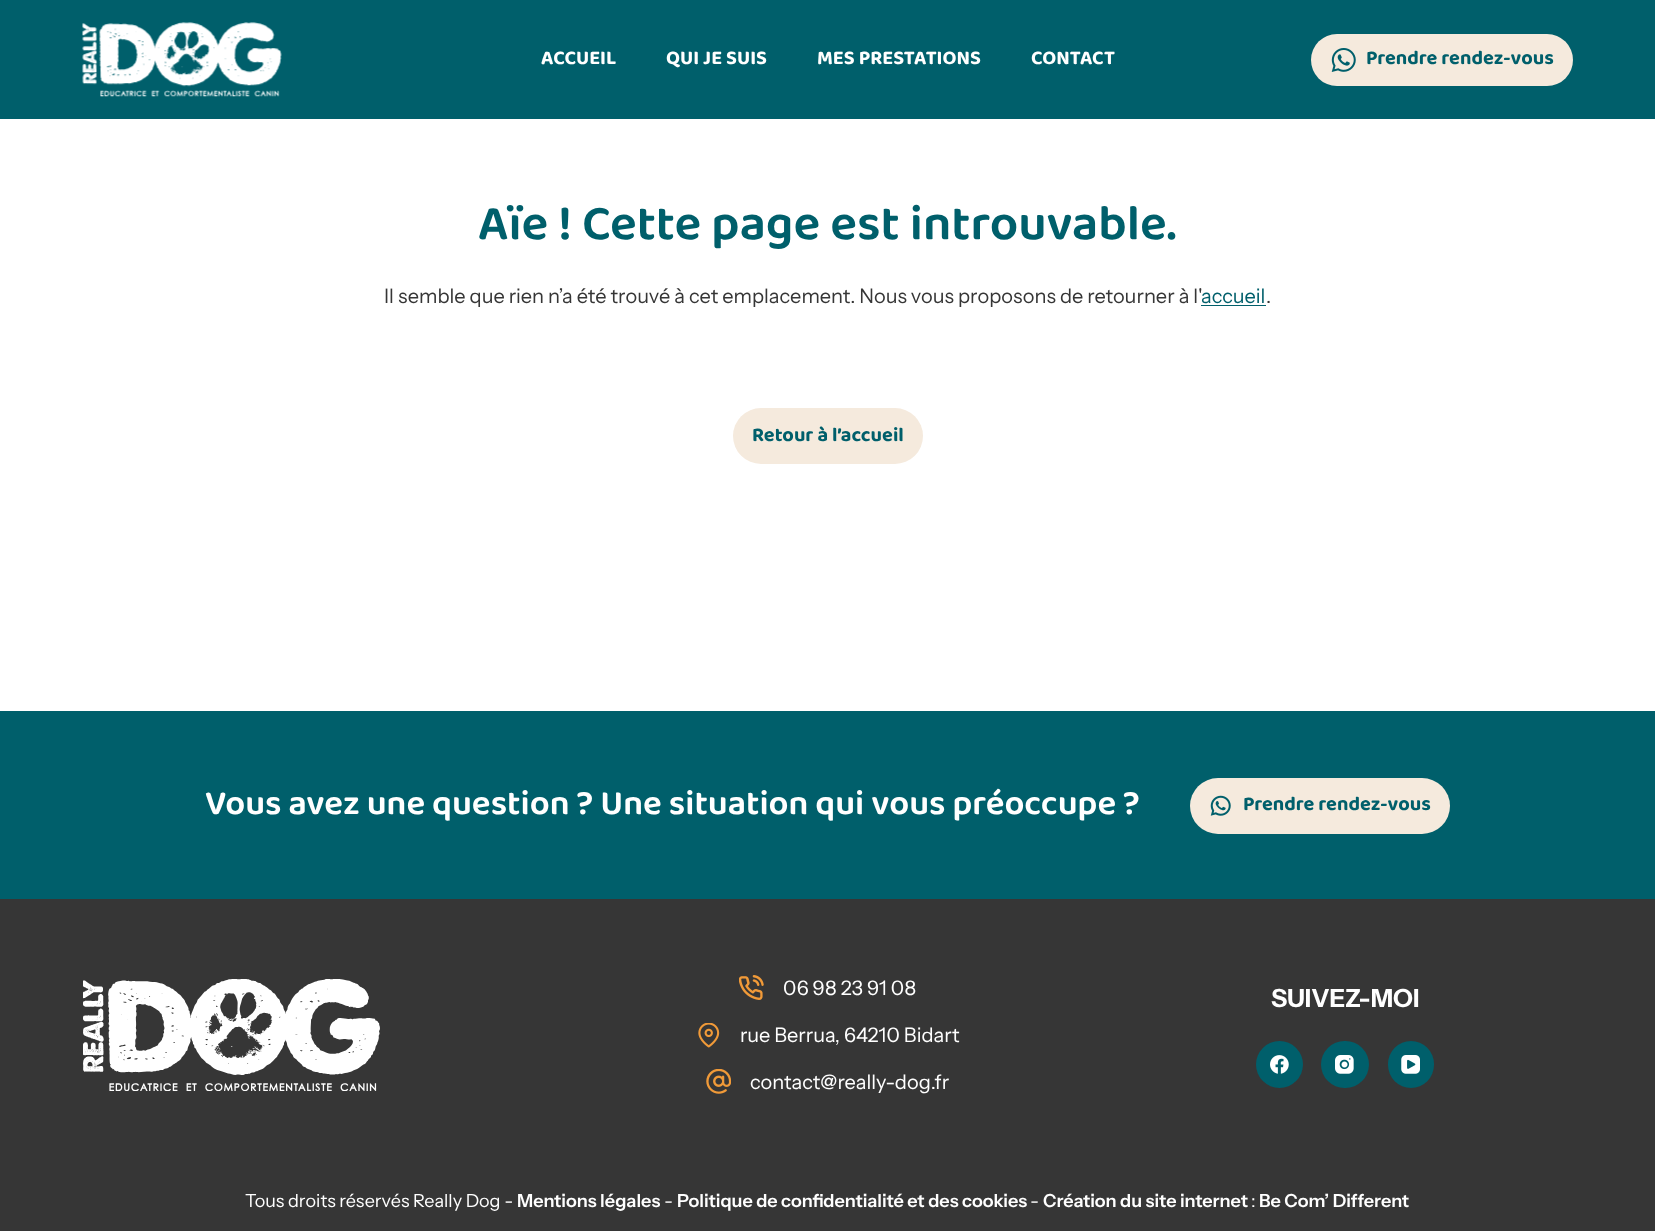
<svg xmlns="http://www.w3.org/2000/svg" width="1655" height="1231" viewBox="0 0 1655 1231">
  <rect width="100%" height="100%" fill="#ffffff"/>
  <rect x="0" y="0" width="1655" height="119" fill="#005f6b"/>
  <image x="82" y="22" width="200" height="75" href="img1.png"/>
  <text x="541" y="64" font-family="'Baloo Thambi 2'" font-size="20" font-weight="bold" fill="#ffffff">ACCUEIL</text>
  <text x="666" y="64" font-family="'Baloo Thambi 2'" font-size="20" font-weight="bold" fill="#ffffff">QUI JE SUIS</text>
  <text x="817" y="64" font-family="'Baloo Thambi 2'" font-size="20" font-weight="bold" fill="#ffffff">MES PRESTATIONS</text>
  <text x="1031" y="64" font-family="'Baloo Thambi 2'" font-size="20" font-weight="bold" fill="#ffffff">CONTACT</text>
  <rect x="1311" y="34" width="262" height="52" rx="26" fill="#f5eadd"/>
  <image x="1331" y="48" width="25" height="24" href="img2.png"/>
  <text x="1366" y="64" font-family="'Baloo Thambi 2'" font-size="20" font-weight="bold" fill="#005f6b">Prendre rendez-vous</text>
  <text x="478" y="239" font-family="'Baloo Thambi 2'" font-size="50" font-weight="600" fill="#005f6b">Aïe ! Cette page est introuvable.</text>
  <text x="384" y="303" font-family="Instrument Sans" font-size="20" fill="#363636">Il semble que rien n’a été trouvé à cet emplacement. Nous vous proposons de retourner à l'</text>
  <text x="1201" y="303" font-family="Instrument Sans" font-size="20" fill="#005f6b">accueil</text>
  <rect x="1201" y="305" width="65" height="1" fill="#005f6b"/>
  <text x="1266" y="303" font-family="Instrument Sans" font-size="20" fill="#363636">.</text>
  <rect x="733" y="408" width="190" height="56" rx="28" fill="#f5eadd"/>
  <text x="752" y="441" font-family="'Baloo Thambi 2'" font-size="20" font-weight="bold" fill="#005f6b">Retour à l’accueil</text>
  <rect x="0" y="711" width="1655" height="188" fill="#005f6b"/>
  <text x="205" y="814" font-family="'Baloo Thambi 2'" font-size="35" font-weight="600" fill="#ffffff">Vous avez une question ? Une situation qui vous préoccupe ?</text>
  <rect x="1190" y="778" width="260" height="56" rx="28" fill="#f5eadd"/>
  <image x="1210" y="795" width="21" height="21" href="img3.png"/>
  <text x="1243" y="810" font-family="'Baloo Thambi 2'" font-size="20" font-weight="bold" fill="#005f6b">Prendre rendez-vous</text>
  <rect x="0" y="899" width="1655" height="332" fill="#363636"/>
  <image x="83" y="979" width="297" height="112" href="img4.png"/>
  <image x="739" y="975" width="25" height="25" href="img5.png"/>
  <text x="783" y="995" font-family="Instrument Sans" font-size="20" fill="#ffffff">06 98 23 91 08</text>
  <image x="698" y="1023" width="22" height="25" href="img6.png"/>
  <text x="740" y="1042" font-family="Instrument Sans" font-size="20" fill="#ffffff">rue Berrua, 64210 Bidart</text>
  <image x="706" y="1069" width="25" height="25" href="img7.png"/>
  <text x="750" y="1089" font-family="Instrument Sans" font-size="20" fill="#ffffff">contact@really-dog.fr</text>
  <text x="1271" y="1007" font-family="Instrument Sans" font-size="25" font-weight="bold" fill="#ffffff">SUIVEZ-MOI</text>
  <circle cx="1279.5" cy="1064.5" r="23.5" fill="#005f6b"/>
  <image x="1270" y="1055" width="19" height="19" href="img8.png"/>
  <rect x="1321" y="1041" width="48" height="47" rx="23.5" fill="#005f6b"/>
  <image x="1335" y="1055" width="19" height="19" href="img9.png"/>
  <rect x="1388" y="1041" width="46" height="47" rx="23" fill="#005f6b"/>
  <image x="1401" y="1055" width="19" height="19" href="img10.png"/>
  <text x="245" y="1207" font-family="Instrument Sans" font-size="18" fill="#ffffff">Tous droits réservés Really Dog -</text>
  <text x="517" y="1207" font-family="Instrument Sans" font-size="18" font-weight="600" fill="#ffffff">Mentions légales</text>
  <text x="664" y="1207" font-family="Instrument Sans" font-size="18" fill="#ffffff">-</text>
  <text x="677" y="1207" font-family="Instrument Sans" font-size="18" font-weight="600" fill="#ffffff">Politique de confidentialité et des cookies</text>
  <text x="1030" y="1207" font-family="Instrument Sans" font-size="18" fill="#ffffff">-</text>
  <text x="1043" y="1207" font-family="Instrument Sans" font-size="18" font-weight="600" fill="#ffffff">Création du site internet</text>
  <text x="1251" y="1207" font-family="Instrument Sans" font-size="18" fill="#ffffff">:</text>
  <text x="1259" y="1207" font-family="Instrument Sans" font-size="18" font-weight="600" fill="#ffffff">Be Com’ Different</text>
</svg>
